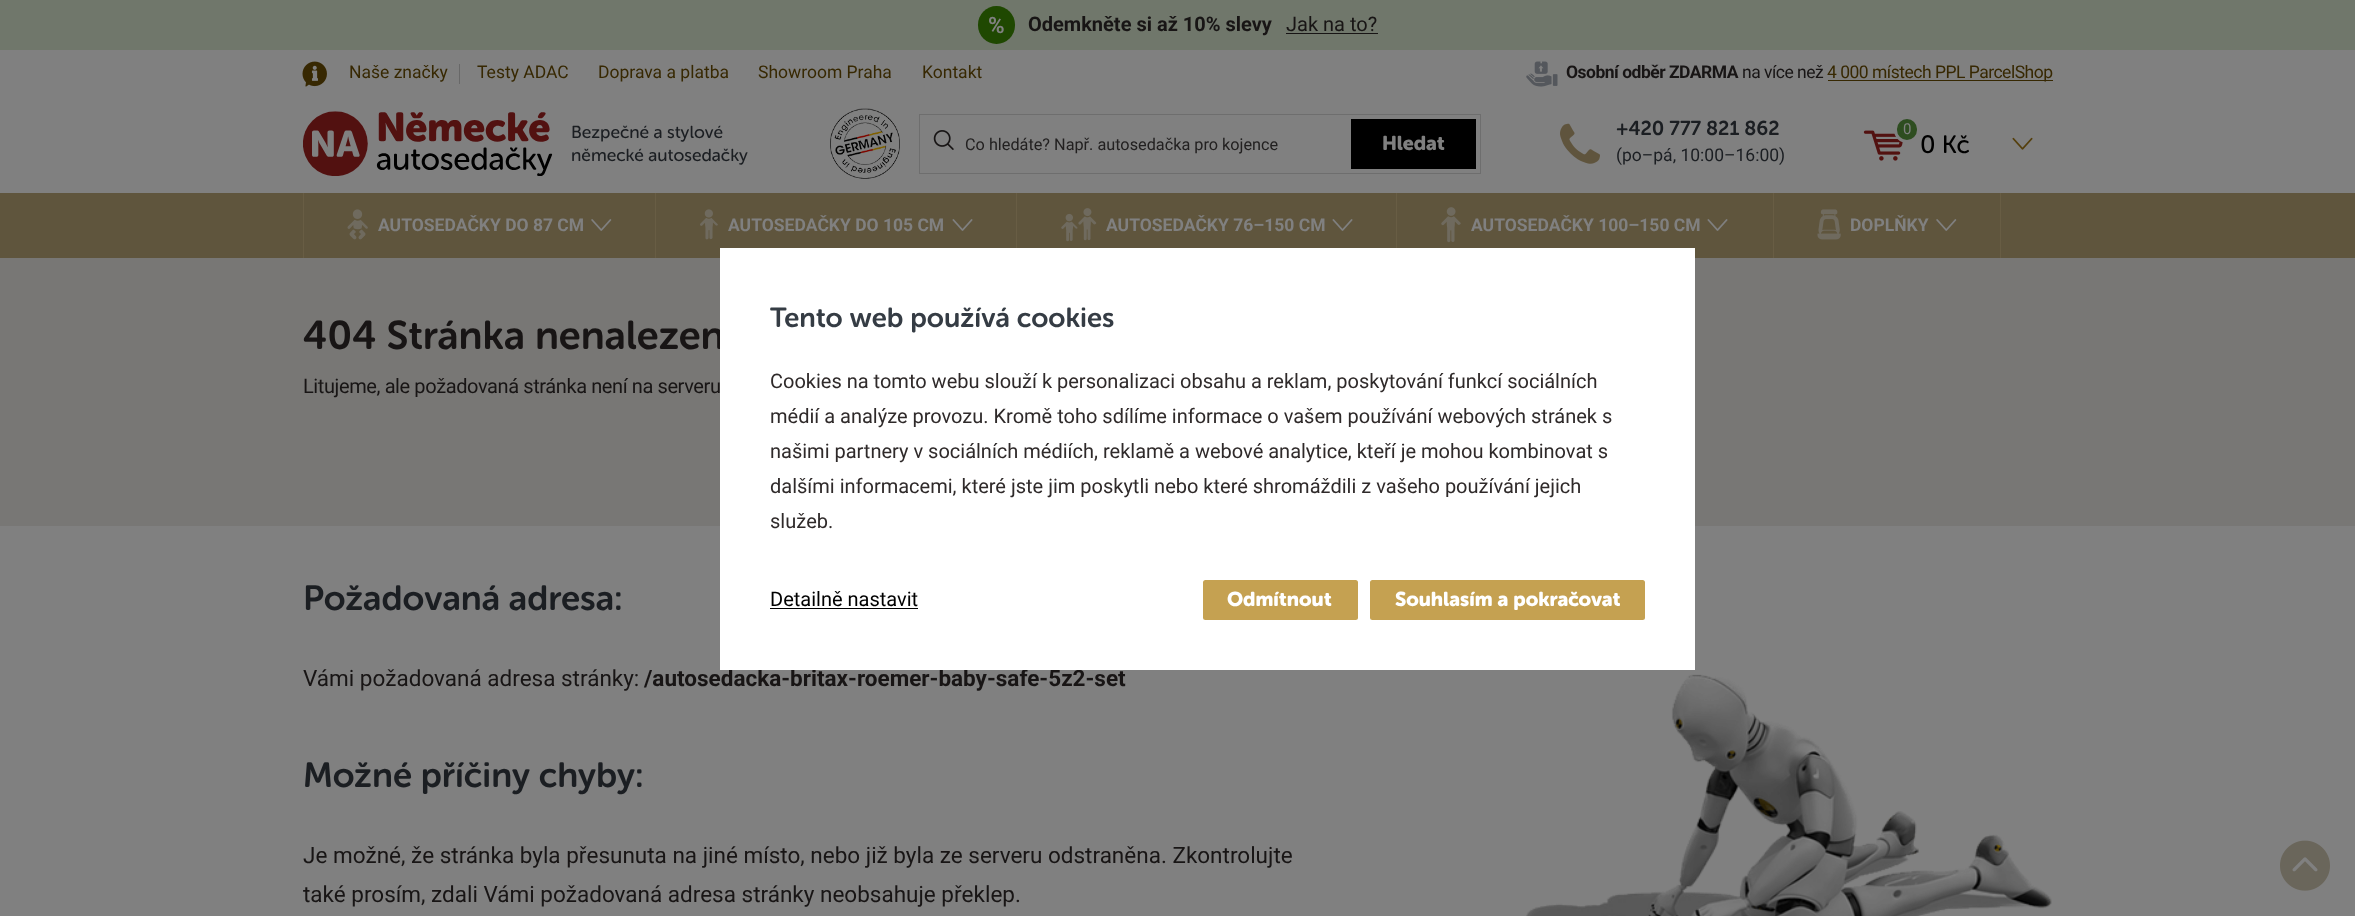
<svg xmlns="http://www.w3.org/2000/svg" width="2355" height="916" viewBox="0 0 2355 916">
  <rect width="100%" height="100%" fill="#808080"/>
  <rect x="0" y="0" width="2355" height="50" fill="#70776b"/>
  <rect x="978" y="6" width="37" height="38" rx="18.5" fill="#1f4801"/>
  <text x="988" y="33" font-family="Roboto" font-size="22.5" font-weight="bold" fill="#808080">%</text>
  <text x="1028" y="31" font-family="Roboto" font-size="20" font-weight="bold" fill="#181515">Odemkněte si až 10% slevy</text>
  <text x="1286" y="31" font-family="Roboto" font-size="20" fill="#181515">Jak na to?</text>
  <rect x="1286" y="33" width="92" height="1" fill="#181515"/>
  <image x="302" y="61" width="25" height="26" href="img1.png"/>
  <text x="349" y="78" font-family="Roboto" font-size="17.5" fill="#372802">Naše značky</text>
  <rect x="459" y="64" width="1" height="20" fill="#686868"/>
  <text x="477" y="78" font-family="Roboto" font-size="17.5" fill="#372802">Testy ADAC</text>
  <text x="598" y="78" font-family="Roboto" font-size="17.5" fill="#372802">Doprava a platba</text>
  <text x="758" y="78" font-family="Roboto" font-size="17.5" fill="#372802">Showroom Praha</text>
  <text x="922" y="78" font-family="Roboto" font-size="17.5" fill="#372802">Kontakt</text>
  <image x="1526" y="61" width="32" height="26" href="img2.png"/>
  <text x="1566" y="78" font-family="Roboto" font-size="17.5" font-weight="bold" letter-spacing="-0.5" fill="#181515">Osobní odběr ZDARMA</text>
  <text x="1742" y="78" font-family="Roboto" font-size="17.5" letter-spacing="-0.5" fill="#181515">na více než</text>
  <rect x="1828" y="80" width="225" height="1" fill="#372802"/>
  <text x="1827" y="78" font-family="Roboto" font-size="17.5" letter-spacing="-0.5" fill="#372802">4 000 místech PPL ParcelShop</text>
  <image x="303" y="111" width="250" height="65" href="img3.png"/>
  <text x="571" y="138" font-family="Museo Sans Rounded" font-size="17.5" fill="#1b1e22">Bezpečné a stylové</text>
  <text x="571" y="161" font-family="Museo Sans Rounded" font-size="17.5" fill="#1b1e22">německé autosedačky</text>
  <image x="830" y="108" width="70" height="71" href="img4.png"/>
  <rect x="919.5" y="114.5" width="561" height="59" fill="none" stroke="#6e6e6e"/>
  <image x="933" y="130" width="21" height="20" href="img5.png"/>
  <text x="965" y="150" font-family="Roboto" font-size="16.25" fill="#222020">Co hledáte? Např. autosedačka pro kojence</text>
  <rect x="1351" y="119" width="125" height="50" fill="#000000"/>
  <text x="1382" y="150" font-family="Museo Sans Rounded" font-size="20" font-weight="bold" fill="#808080">Hledat</text>
  <image x="1560" y="123" width="40" height="41" href="img6.png"/>
  <text x="1616" y="135" font-family="Museo Sans Rounded" font-size="20" font-weight="600" fill="#1b1e22">+420 777 821 862</text>
  <text x="1616" y="161" font-family="Roboto" font-size="17.5" fill="#1b1e22">(po–pá, 10:00–16:00)</text>
  <image x="1863" y="130" width="40" height="31" href="img7.png"/>
  <rect x="1895.5" y="117.5" width="23" height="24" rx="11.5" fill="#2e4d20" stroke="#808080" stroke-width="3"/>
  <text x="1903" y="134" font-family="Roboto" font-size="15" fill="#808080">0</text>
  <text x="1920" y="153" font-family="Museo Sans Rounded" font-size="25" fill="#000000">0 Kč</text>
  <image x="2012" y="137" width="21" height="13" href="img8.png"/>
  <rect x="0" y="193" width="2355" height="65" fill="#5f553d"/>
  <rect x="655" y="193" width="1" height="65" fill="#685d44"/>
  <rect x="303" y="193" width="1" height="65" fill="#685d44"/>
  <image x="347" y="209" width="21" height="31" href="img9.png"/>
  <text x="378" y="231" font-family="Roboto" font-size="17.5" font-weight="bold" fill="#808080">AUTOSEDAČKY DO 87 CM</text>
  <image x="591" y="219" width="21" height="12" href="img10.png"/>
  <rect x="1016" y="193" width="1" height="55" fill="#685d44"/>
  <image x="700" y="209" width="18" height="31" href="img11.png"/>
  <text x="728" y="231" font-family="Roboto" font-size="17.5" font-weight="bold" fill="#808080">AUTOSEDAČKY DO 105 CM</text>
  <image x="952" y="219" width="21" height="12" href="img12.png"/>
  <rect x="1396" y="193" width="1" height="55" fill="#685d44"/>
  <image x="1061" y="208" width="36" height="34" href="img13.png"/>
  <text x="1106" y="231" font-family="Roboto" font-size="17.5" font-weight="bold" fill="#808080">AUTOSEDAČKY 76–150 CM</text>
  <image x="1332" y="219" width="21" height="12" href="img12.png"/>
  <rect x="1773" y="193" width="1" height="65" fill="#685d44"/>
  <image x="1441" y="207" width="20" height="36" href="img14.png"/>
  <text x="1471" y="231" font-family="Roboto" font-size="17.5" font-weight="bold" fill="#808080">AUTOSEDAČKY 100–150 CM</text>
  <image x="1707" y="219" width="21" height="12" href="img12.png"/>
  <rect x="2000" y="193" width="1" height="65" fill="#685d44"/>
  <image x="1817" y="209" width="24" height="31" href="img15.png"/>
  <text x="1850" y="231" font-family="Roboto" font-size="17.5" font-weight="bold" fill="#808080">DOPLŇKY</text>
  <image x="1936" y="219" width="21" height="12" href="img10.png"/>
  <rect x="0" y="258" width="2355" height="268" fill="#787775"/>
  <text x="303" y="349" font-family="Museo Sans Rounded" font-size="40" font-weight="600" fill="#181515">404 Stránka nenalezen</text>
  <text x="644" y="686" font-family="Roboto" font-size="22.5" font-weight="bold" fill="#181515">/autosedacka-britax-roemer-baby-safe-5z2-set</text>
  <rect x="720" y="248" width="975" height="422" fill="#ffffff"/>
  <text x="770" y="327" font-family="Museo Sans Rounded" font-size="27.5" font-weight="600" fill="#353c44">Tento web používá cookies</text>
  <text x="770" y="388" font-family="Roboto" font-size="20" fill="#2f2a2a">Cookies na tomto webu slouží k personalizaci obsahu a reklam, poskytování funkcí sociálních</text>
  <text x="770" y="423" font-family="Roboto" font-size="20" fill="#2f2a2a">médií a analýze provozu. Kromě toho sdílíme informace o vašem používání webových stránek s</text>
  <text x="770" y="458" font-family="Roboto" font-size="20" fill="#2f2a2a">našimi partnery v sociálních médiích, reklamě a webové analytice, kteří je mohou kombinovat s</text>
  <text x="770" y="493" font-family="Roboto" font-size="20" fill="#2f2a2a">dalšími informacemi, které jste jim poskytli nebo které shromáždili z vašeho používání jejich</text>
  <text x="770" y="528" font-family="Roboto" font-size="20" fill="#2f2a2a">služeb.</text>
  <text x="770" y="606" font-family="Roboto" font-size="20" fill="#000000">Detailně nastavit</text>
  <rect x="770" y="608" width="148" height="1" fill="#000000"/>
  <rect x="1203" y="580" width="155" height="40" rx="2.5" fill="#c5a151"/>
  <text x="1227" y="606" font-family="Museo Sans Rounded" font-size="20" font-weight="bold" fill="#ffffff">Odmítnout</text>
  <rect x="1370" y="580" width="275" height="40" rx="2.5" fill="#c5a151"/>
  <text x="1395" y="606" font-family="Museo Sans Rounded" font-size="20" font-weight="bold" fill="#ffffff">Souhlasím a pokračovat</text>
  <text x="303" y="393" font-family="Roboto" font-size="20" letter-spacing="-0.4" fill="#181515">Litujeme, ale požadovaná stránka není na serveru</text>
  <image x="1526" y="674" width="526" height="242" href="img16.png"/>
  <text x="303" y="610" font-family="Museo Sans Rounded" font-size="35" font-weight="600" fill="#1b1e22">Požadovaná adresa:</text>
  <text x="303" y="686" font-family="Roboto" font-size="22.5" fill="#181515">Vámi požadovaná adresa stránky:</text>
  <text x="303" y="787" font-family="Museo Sans Rounded" font-size="35" font-weight="600" fill="#1b1e22">Možné příčiny chyby:</text>
  <text x="303" y="863" font-family="Roboto" font-size="22.5" fill="#181515">Je možné, že stránka byla přesunuta na jiné místo, nebo již byla ze serveru odstraněna. Zkontrolujte</text>
  <text x="303" y="902" font-family="Roboto" font-size="22.5" fill="#181515">také prosím, zdali Vámi požadovaná adresa stránky neobsahuje překlep.</text>
  <image x="2280" y="840" width="50" height="51" href="img17.png"/>
</svg>
